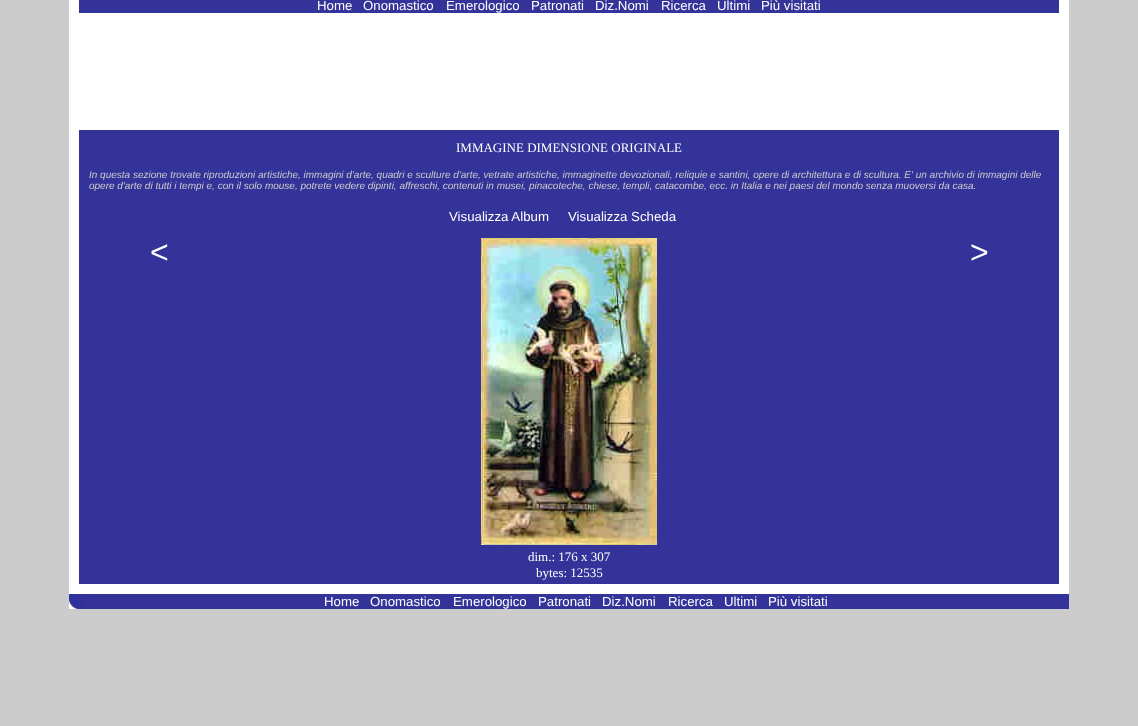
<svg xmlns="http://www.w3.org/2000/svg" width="1138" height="726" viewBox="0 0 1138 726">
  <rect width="100%" height="100%" fill="#cccccc"/>
  <rect x="69" y="0" width="1000" height="594" fill="#ffffff"/>
  <rect x="79" y="0" width="980" height="13" fill="#333399"/>
  <text x="317" y="10" font-family="Liberation Sans" font-size="13.25" fill="#ffffff">Home</text>
  <text x="363" y="10" font-family="Liberation Sans" font-size="13.25" fill="#ffffff">Onomastico</text>
  <text x="446" y="10" font-family="Liberation Sans" font-size="13.25" fill="#ffffff">Emerologico</text>
  <text x="531" y="10" font-family="Liberation Sans" font-size="13.25" fill="#ffffff">Patronati</text>
  <text x="595" y="10" font-family="Liberation Sans" font-size="13.25" fill="#ffffff">Diz.Nomi</text>
  <text x="661" y="10" font-family="Liberation Sans" font-size="13.25" fill="#ffffff">Ricerca</text>
  <text x="717" y="10" font-family="Liberation Sans" font-size="13.25" fill="#ffffff">Ultimi</text>
  <text x="761" y="10" font-family="Liberation Sans" font-size="13.25" fill="#ffffff">Più visitati</text>
  <rect x="79" y="130" width="980" height="454" fill="#333399"/>
  <text x="456" y="152" font-family="Liberation Serif" font-size="13" fill="#ffffff">IMMAGINE DIMENSIONE ORIGINALE</text>
  <text x="89" y="178" font-family="Liberation Sans" font-size="10" font-style="italic" fill="#cccccc">In questa sezione trovate riproduzioni artistiche, immagini d'arte, quadri e sculture d'arte, vetrate artistiche, immaginette devozionali, reliquie e santini, opere di architettura e di scultura. E' un archivio di immagini delle</text>
  <text x="89" y="189" font-family="Liberation Sans" font-size="10" font-style="italic" fill="#cccccc">opere d'arte di tutti i tempi e, con il solo mouse, potrete vedere dipinti, affreschi, contenuti in musei, pinacoteche, chiese, templi, catacombe, ecc. in Italia e nei paesi del mondo senza muoversi da casa.</text>
  <text x="449" y="221" font-family="Liberation Sans" font-size="13.25" fill="#ffffff">Visualizza Album</text>
  <text x="568" y="221" font-family="Liberation Sans" font-size="13.25" fill="#ffffff">Visualizza Scheda</text>
  <text x="150" y="263" font-family="Liberation Sans" font-size="32" fill="#ffffff">&lt;</text>
  <text x="970" y="263" font-family="Liberation Sans" font-size="32" fill="#ffffff">&gt;</text>
  <image x="481" y="238" width="176" height="307" href="img1.png"/>
  <text x="528" y="561" font-family="Liberation Serif" font-size="13" fill="#ffffff">dim.: 176 x 307</text>
  <text x="536" y="577" font-family="Liberation Serif" font-size="13" fill="#ffffff">bytes: 12535</text>
  <rect x="69" y="594" width="1000" height="15" fill="#333399"/>
  <image x="69" y="595" width="14" height="14" href="img2.png"/>
  <text x="324" y="606" font-family="Liberation Sans" font-size="13.25" fill="#ffffff">Home</text>
  <text x="370" y="606" font-family="Liberation Sans" font-size="13.25" fill="#ffffff">Onomastico</text>
  <text x="453" y="606" font-family="Liberation Sans" font-size="13.25" fill="#ffffff">Emerologico</text>
  <text x="538" y="606" font-family="Liberation Sans" font-size="13.25" fill="#ffffff">Patronati</text>
  <text x="602" y="606" font-family="Liberation Sans" font-size="13.25" fill="#ffffff">Diz.Nomi</text>
  <text x="668" y="606" font-family="Liberation Sans" font-size="13.25" fill="#ffffff">Ricerca</text>
  <text x="724" y="606" font-family="Liberation Sans" font-size="13.25" fill="#ffffff">Ultimi</text>
  <text x="768" y="606" font-family="Liberation Sans" font-size="13.25" fill="#ffffff">Più visitati</text>
</svg>
